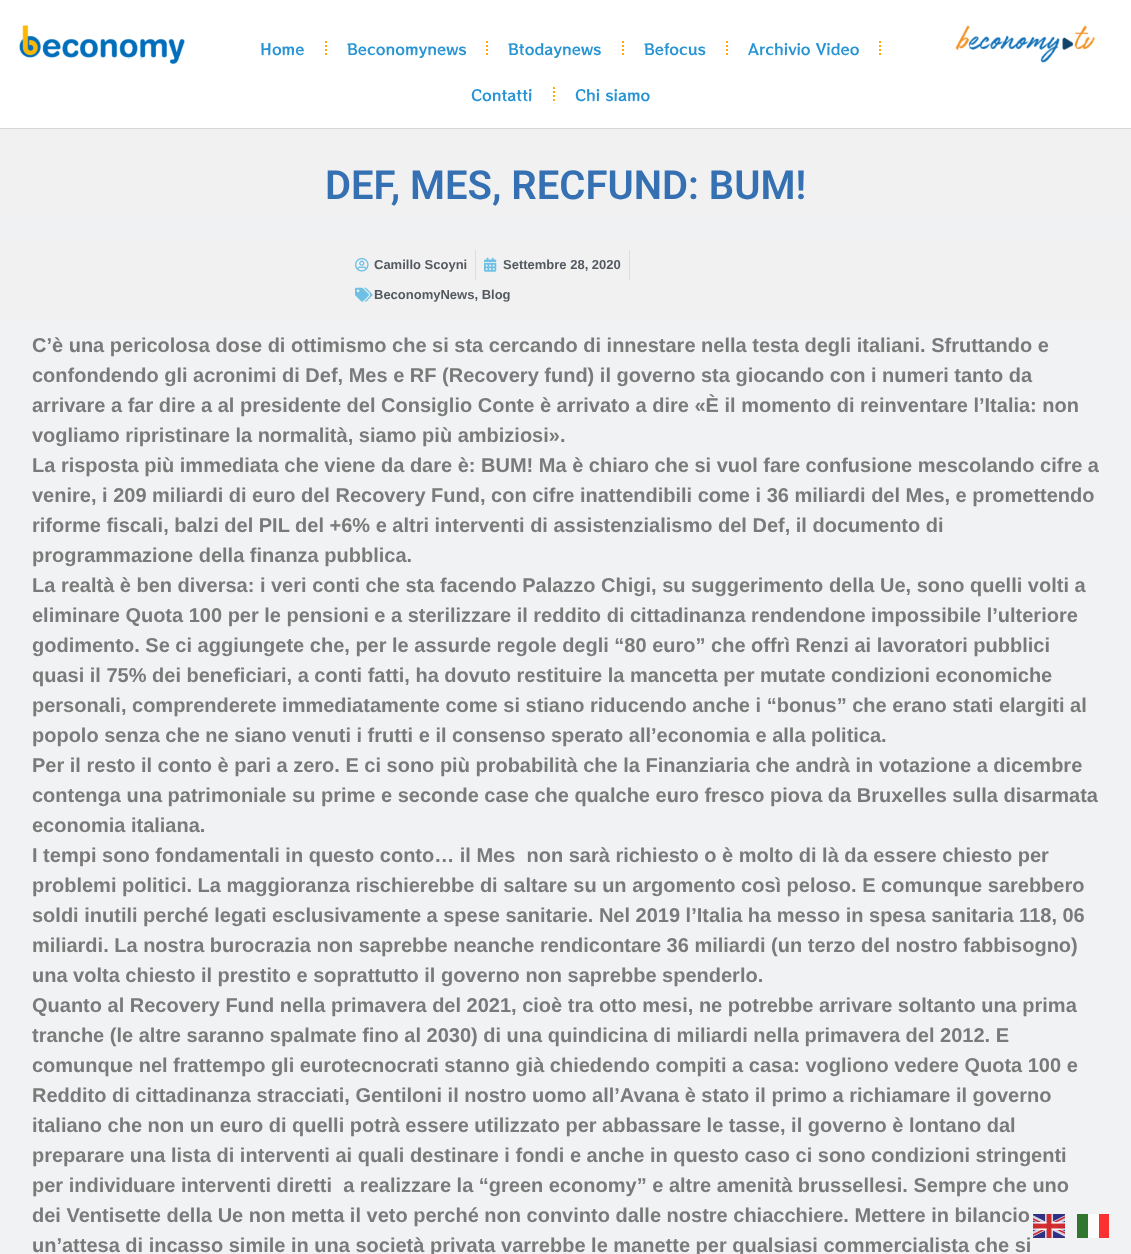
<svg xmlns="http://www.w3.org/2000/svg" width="1131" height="1254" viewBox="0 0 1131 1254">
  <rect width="100%" height="100%" fill="#ffffff"/>
  <rect x="0" y="128" width="1131" height="1" fill="#d7d7d7"/>
  <image x="19" y="25" width="166" height="40" href="img1.png"/>
  <text x="260" y="55" font-family="RocknRoll One" font-size="15" fill="#2894d3">Home</text>
  <path d="M326 41V57" fill="none" stroke="#fdab07" stroke-width="2" stroke-dasharray="2 2"/>
  <text x="347" y="55" font-family="RocknRoll One" font-size="15" fill="#2894d3">Beconomynews</text>
  <path d="M487 41V57" fill="none" stroke="#fdab07" stroke-width="2" stroke-dasharray="2 2"/>
  <text x="508" y="55" font-family="RocknRoll One" font-size="15" fill="#2894d3">Btodaynews</text>
  <path d="M623 41V57" fill="none" stroke="#fdab07" stroke-width="2" stroke-dasharray="2 2"/>
  <text x="644" y="55" font-family="RocknRoll One" font-size="15" fill="#2894d3">Befocus</text>
  <path d="M727 41V57" fill="none" stroke="#fdab07" stroke-width="2" stroke-dasharray="2 2"/>
  <text x="748" y="55" font-family="RocknRoll One" font-size="15" fill="#2894d3">Archivio Video</text>
  <path d="M880 41V57" fill="none" stroke="#fdab07" stroke-width="2" stroke-dasharray="2 2"/>
  <text x="471" y="101" font-family="RocknRoll One" font-size="15" fill="#2894d3">Contatti</text>
  <path d="M554 87V103" fill="none" stroke="#fdab07" stroke-width="2" stroke-dasharray="2 2"/>
  <text x="575" y="101" font-family="RocknRoll One" font-size="15" fill="#2894d3">Chi siamo</text>
  <image x="955" y="25" width="140" height="38" href="img2.png"/>
  <rect x="0" y="129" width="1131" height="91" fill="#f1f1f2"/>
  <text x="325" y="199" font-family="Roboto" font-size="40" font-weight="600" fill="#3570b2">DEF, MES, RECFUND: BUM!</text>
  <rect x="0" y="220" width="1131" height="20" fill="#f0f1f2"/>
  <rect x="0" y="240" width="1131" height="80" fill="#f1f1f2"/>
  <image x="355" y="258" width="14" height="14" href="img3.png"/>
  <text x="374" y="269" font-family="Liberation Sans" font-size="13" font-weight="bold" fill="#54595f">Camillo Scoyni</text>
  <rect x="475" y="250" width="1" height="30" fill="#dddddd"/>
  <image x="484" y="257" width="13" height="15" href="img4.png"/>
  <text x="503" y="269" font-family="Liberation Sans" font-size="13" font-weight="bold" fill="#54595f">Settembre 28, 2020</text>
  <rect x="629" y="250" width="1" height="30" fill="#dddddd"/>
  <image x="355" y="287" width="18" height="15" href="img5.png"/>
  <text x="374" y="299" font-family="Liberation Sans" font-size="13" font-weight="bold" fill="#54595f">BeconomyNews, Blog</text>
  <rect x="0" y="320" width="1131" height="934" fill="#f1f2f3"/>
  <text x="32" y="352" font-family="Liberation Sans" font-size="20" font-weight="bold" fill="#7a7a7a">C’è una pericolosa dose di ottimismo che si sta cercando di innestare nella testa degli italiani. Sfruttando e</text>
  <text x="32" y="382" font-family="Liberation Sans" font-size="20" font-weight="bold" fill="#7a7a7a">confondendo gli acronimi di Def, Mes e RF (Recovery fund) il governo sta giocando con i numeri tanto da</text>
  <text x="32" y="412" font-family="Liberation Sans" font-size="20" font-weight="bold" fill="#7a7a7a">arrivare a far dire a al presidente del Consiglio Conte è arrivato a dire «È il momento di reinventare l’Italia: non</text>
  <text x="32" y="442" font-family="Liberation Sans" font-size="20" font-weight="bold" fill="#7a7a7a">vogliamo ripristinare la normalità, siamo più ambiziosi».</text>
  <text x="32" y="472" font-family="Liberation Sans" font-size="20" font-weight="bold" fill="#7a7a7a">La risposta più immediata che viene da dare è: BUM! Ma è chiaro che si vuol fare confusione mescolando cifre a</text>
  <text x="32" y="502" font-family="Liberation Sans" font-size="20" font-weight="bold" fill="#7a7a7a">venire, i 209 miliardi di euro del Recovery Fund, con cifre inattendibili come i 36 miliardi del Mes, e promettendo</text>
  <text x="32" y="532" font-family="Liberation Sans" font-size="20" font-weight="bold" fill="#7a7a7a">riforme fiscali, balzi del PIL del +6% e altri interventi di assistenzialismo del Def, il documento di</text>
  <text x="32" y="562" font-family="Liberation Sans" font-size="20" font-weight="bold" fill="#7a7a7a">programmazione della finanza pubblica.</text>
  <text x="32" y="592" font-family="Liberation Sans" font-size="20" font-weight="bold" fill="#7a7a7a">La realtà è ben diversa: i veri conti che sta facendo Palazzo Chigi, su suggerimento della Ue, sono quelli volti a</text>
  <text x="32" y="622" font-family="Liberation Sans" font-size="20" font-weight="bold" fill="#7a7a7a">eliminare Quota 100 per le pensioni e a sterilizzare il reddito di cittadinanza rendendone impossibile l’ulteriore</text>
  <text x="32" y="652" font-family="Liberation Sans" font-size="20" font-weight="bold" fill="#7a7a7a">godimento. Se ci aggiungete che, per le assurde regole degli “80 euro” che offrì Renzi ai lavoratori pubblici</text>
  <text x="32" y="682" font-family="Liberation Sans" font-size="20" font-weight="bold" fill="#7a7a7a">quasi il 75% dei beneficiari, a conti fatti, ha dovuto restituire la mancetta per mutate condizioni economiche</text>
  <text x="32" y="712" font-family="Liberation Sans" font-size="20" font-weight="bold" fill="#7a7a7a">personali, comprenderete immediatamente come si stiano riducendo anche i “bonus” che erano stati elargiti al</text>
  <text x="32" y="742" font-family="Liberation Sans" font-size="20" font-weight="bold" fill="#7a7a7a">popolo senza che ne siano venuti i frutti e il consenso sperato all’economia e alla politica.</text>
  <text x="32" y="772" font-family="Liberation Sans" font-size="20" font-weight="bold" fill="#7a7a7a">Per il resto il conto è pari a zero. E ci sono più probabilità che la Finanziaria che andrà in votazione a dicembre</text>
  <text x="32" y="802" font-family="Liberation Sans" font-size="20" font-weight="bold" fill="#7a7a7a">contenga una patrimoniale su prime e seconde case che qualche euro fresco piova da Bruxelles sulla disarmata</text>
  <text x="32" y="832" font-family="Liberation Sans" font-size="20" font-weight="bold" fill="#7a7a7a">economia italiana.</text>
  <text x="32" y="862" font-family="Liberation Sans" font-size="20" font-weight="bold" fill="#7a7a7a" xml:space="preserve">I tempi sono fondamentali in questo conto… il Mes  non sarà richiesto o è molto di là da essere chiesto per</text>
  <text x="32" y="892" font-family="Liberation Sans" font-size="20" font-weight="bold" fill="#7a7a7a">problemi politici. La maggioranza rischierebbe di saltare su un argomento così peloso. E comunque sarebbero</text>
  <text x="32" y="922" font-family="Liberation Sans" font-size="20" font-weight="bold" fill="#7a7a7a">soldi inutili perché legati esclusivamente a spese sanitarie. Nel 2019 l’Italia ha messo in spesa sanitaria 118, 06</text>
  <text x="32" y="952" font-family="Liberation Sans" font-size="20" font-weight="bold" fill="#7a7a7a">miliardi. La nostra burocrazia non saprebbe neanche rendicontare 36 miliardi (un terzo del nostro fabbisogno)</text>
  <text x="32" y="982" font-family="Liberation Sans" font-size="20" font-weight="bold" fill="#7a7a7a">una volta chiesto il prestito e soprattutto il governo non saprebbe spenderlo.</text>
  <text x="32" y="1012" font-family="Liberation Sans" font-size="20" font-weight="bold" fill="#7a7a7a">Quanto al Recovery Fund nella primavera del 2021, cioè tra otto mesi, ne potrebbe arrivare soltanto una prima</text>
  <text x="32" y="1042" font-family="Liberation Sans" font-size="20" font-weight="bold" fill="#7a7a7a">tranche (le altre saranno spalmate fino al 2030) di una quindicina di miliardi nella primavera del 2012. E</text>
  <text x="32" y="1072" font-family="Liberation Sans" font-size="20" font-weight="bold" fill="#7a7a7a">comunque nel frattempo gli eurotecnocrati stanno già chiedendo compiti a casa: vogliono vedere Quota 100 e</text>
  <text x="32" y="1102" font-family="Liberation Sans" font-size="20" font-weight="bold" fill="#7a7a7a">Reddito di cittadinanza stracciati, Gentiloni il nostro uomo all’Avana è stato il primo a richiamare il governo</text>
  <text x="32" y="1132" font-family="Liberation Sans" font-size="20" font-weight="bold" fill="#7a7a7a">italiano che non un euro di quelli potrà essere utilizzato per abbassare le tasse, il governo è lontano dal</text>
  <text x="32" y="1162" font-family="Liberation Sans" font-size="20" font-weight="bold" fill="#7a7a7a">preparare una lista di interventi ai quali destinare i fondi e anche in questo caso ci sono condizioni stringenti</text>
  <text x="32" y="1192" font-family="Liberation Sans" font-size="20" font-weight="bold" fill="#7a7a7a" xml:space="preserve">per individuare interventi diretti  a realizzare la “green economy” e altre amenità brussellesi. Sempre che uno</text>
  <text x="32" y="1222" font-family="Liberation Sans" font-size="20" font-weight="bold" fill="#7a7a7a">dei Ventisette della Ue non metta il veto perché non convinto dalle nostre chiacchiere. Mettere in bilancio</text>
  <text x="32" y="1252" font-family="Liberation Sans" font-size="20" font-weight="bold" fill="#7a7a7a">un’attesa di incasso simile in una società privata varrebbe le manette per qualsiasi commercialista che si</text>
  <image x="1033" y="1214" width="32" height="24" href="img6.png"/>
  <rect x="1077" y="1214" width="11" height="24" fill="#307631"/>
  <rect x="1088" y="1214" width="11" height="24" fill="#fcfcfd"/>
  <rect x="1099" y="1214" width="10" height="24" fill="#fa3031"/>
</svg>
